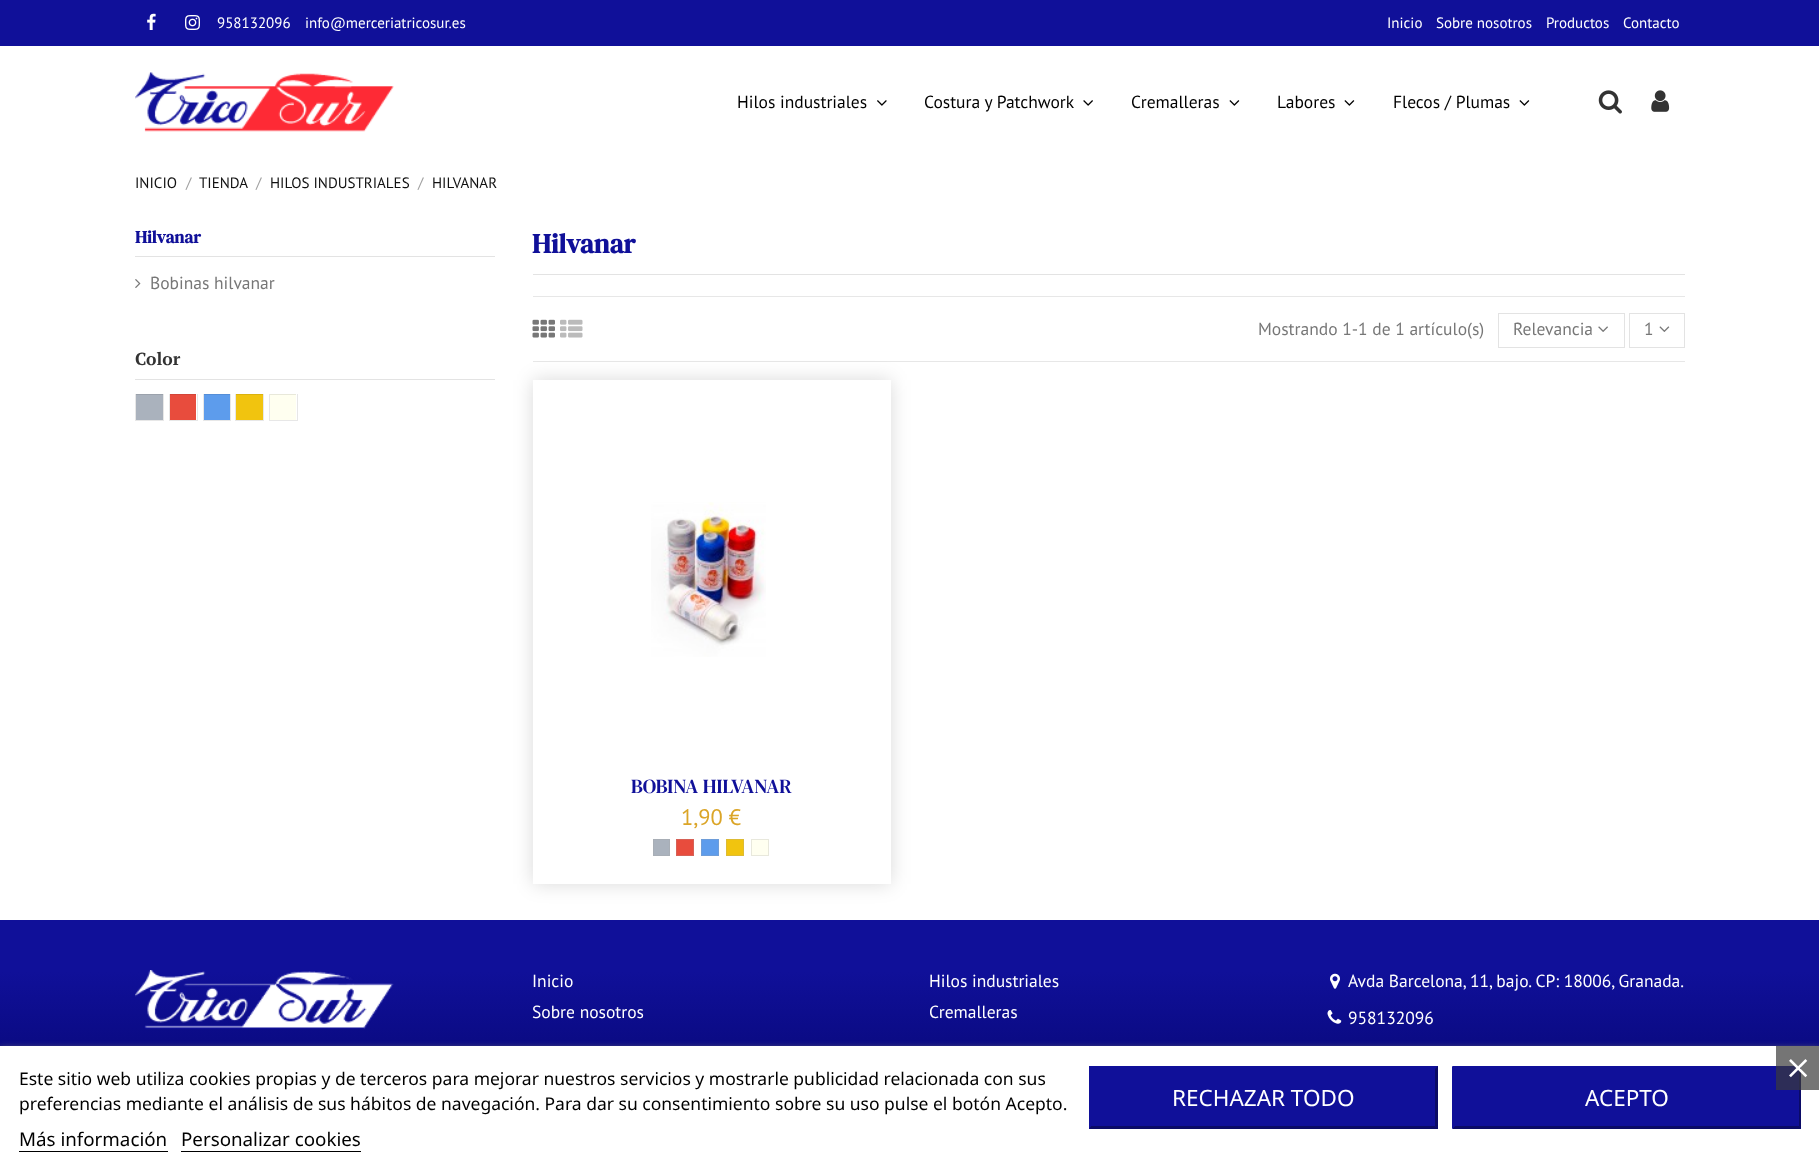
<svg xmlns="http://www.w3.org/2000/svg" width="1819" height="1171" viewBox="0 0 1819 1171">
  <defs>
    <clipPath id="clip1"><rect x="135" y="394" width="360" height="49"/></clipPath>
    <clipPath id="clip2"><path d="M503 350H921V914H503ZM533 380H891V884H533Z" clip-rule="evenodd"/></clipPath>
    <filter id="blur1" x="-50%" y="-200%" width="200%" height="500%"><feGaussianBlur stdDeviation="9.5"/></filter>
    <linearGradient id="g1" gradientUnits="userSpaceOnUse" x1="910" y1="920" x2="910" y2="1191"><stop offset="0.19" stop-color="#101099"/><stop offset="1" stop-color="#00005a"/></linearGradient>
    <filter id="blur2" x="-50%" y="-200%" width="200%" height="500%"><feGaussianBlur stdDeviation="3"/></filter>
  </defs>
  <rect width="100%" height="100%" fill="#ffffff"/>
  <rect x="0" y="0" width="1819" height="46" fill="#101099"/>
  <image x="147" y="13" width="9" height="17" href="img1.png"/>
  <image x="185" y="15" width="15" height="15" href="img2.png"/>
  <text x="217" y="28" font-family="PT Sans" font-size="15" fill="#ffffff">958132096</text>
  <text x="305" y="28" font-family="PT Sans" font-size="15" fill="#ffffff">info@merceriatricosur.es</text>
  <text x="1387" y="28" font-family="PT Sans" font-size="15" fill="#ffffff">Inicio</text>
  <text x="1436" y="28" font-family="PT Sans" font-size="15" fill="#ffffff">Sobre nosotros</text>
  <text x="1546" y="28" font-family="PT Sans" font-size="15" fill="#ffffff">Productos</text>
  <text x="1623" y="28" font-family="PT Sans" font-size="15" fill="#ffffff">Contacto</text>
  <image x="135" y="72" width="259" height="60" href="img3.png"/>
  <text x="737" y="108" font-family="PT Sans" font-size="17.5" fill="#000000">Hilos industriales</text>
  <image x="877" y="100" width="10" height="6" href="img4.png"/>
  <text x="924" y="108" font-family="PT Sans" font-size="17.5" fill="#000000">Costura y Patchwork</text>
  <image x="1083" y="100" width="10" height="6" href="img5.png"/>
  <text x="1131" y="108" font-family="PT Sans" font-size="17.5" fill="#000000">Cremalleras</text>
  <image x="1229" y="100" width="11" height="6" href="img6.png"/>
  <text x="1277" y="108" font-family="PT Sans" font-size="17.5" fill="#000000">Labores</text>
  <image x="1344" y="100" width="11" height="6" href="img6.png"/>
  <text x="1393" y="108" font-family="PT Sans" font-size="17.5" fill="#000000">Flecos / Plumas</text>
  <image x="1519" y="100" width="11" height="6" href="img6.png"/>
  <image x="1598" y="90" width="24" height="24" href="img7.png"/>
  <image x="1651" y="90" width="19" height="22" href="img8.png"/>
  <text x="135" y="188" font-family="PT Sans" font-size="15" fill="#111111">INICIO</text>
  <text x="186" y="188" font-family="PT Sans" font-size="15" fill="#a0a0a0">/</text>
  <text x="199" y="188" font-family="PT Sans" font-size="15" fill="#111111">TIENDA</text>
  <text x="256" y="188" font-family="PT Sans" font-size="15" fill="#a0a0a0">/</text>
  <text x="270" y="188" font-family="PT Sans" font-size="15" fill="#111111">HILOS INDUSTRIALES</text>
  <text x="418" y="188" font-family="PT Sans" font-size="15" fill="#a0a0a0">/</text>
  <text x="432" y="188" font-family="PT Sans" font-size="15" fill="#111111">HILVANAR</text>
  <rect x="135" y="256" width="360" height="1" fill="#e3e3e3"/>
  <text x="135" y="243" font-family="DM Serif Text" font-size="17.5" font-weight="bold" fill="#101099">Hilvanar</text>
  <image x="135" y="279" width="6" height="9" href="img9.png"/>
  <text x="150" y="289" font-family="PT Sans" font-size="17.5" fill="#777777">Bobinas hilvanar</text>
  <rect x="135" y="379" width="360" height="1" fill="#e3e3e3"/>
  <text x="135" y="365" font-family="PT Serif" font-size="17.5" font-weight="bold" fill="#333333">Color</text>
  <rect x="136" y="395" width="27" height="25" fill="#aab2bd"/>
  <rect x="136" y="394" width="27" height="1" fill="#9ba2ac"/>
  <g clip-path="url(#clip1)">
    <rect x="135.5" y="393.5" width="28" height="27" fill="none" stroke="#e7e7e7"/>
  </g>
  <rect x="170" y="395" width="26" height="25" fill="#e84c3d"/>
  <rect x="170" y="394" width="26" height="1" fill="#d34538"/>
  <g clip-path="url(#clip1)">
    <rect x="169.5" y="393.5" width="28" height="27" fill="none" stroke="#e7e7e7"/>
  </g>
  <rect x="204" y="395" width="26" height="25" fill="#5d9cec"/>
  <rect x="204" y="394" width="26" height="1" fill="#558ed7"/>
  <g clip-path="url(#clip1)">
    <rect x="203.5" y="393.5" width="27" height="27" fill="none" stroke="#e7e7e7"/>
  </g>
  <rect x="236" y="395" width="27" height="25" fill="#f1c40f"/>
  <rect x="236" y="394" width="27" height="1" fill="#dbb20e"/>
  <g clip-path="url(#clip1)">
    <rect x="235.5" y="393.5" width="28" height="27" fill="none" stroke="#e7e7e7"/>
  </g>
  <rect x="270" y="395" width="26" height="25" fill="#fffff0"/>
  <rect x="270" y="394" width="26" height="1" fill="#e8e8da"/>
  <g clip-path="url(#clip1)">
    <rect x="269.5" y="393.5" width="28" height="27" fill="none" stroke="#e7e7e7"/>
  </g>
  <rect x="533" y="274" width="1152" height="1" fill="#e3e3e3"/>
  <text x="532" y="253" font-family="DM Serif Text" font-size="27.5" font-weight="bold" fill="#101099">Hilvanar</text>
  <rect x="533" y="296" width="1152" height="1" fill="#e7e7e7"/>
  <rect x="533" y="361" width="1152" height="1" fill="#e7e7e7"/>
  <image x="532" y="319" width="23" height="19" href="img10.png"/>
  <image x="560" y="319" width="23" height="19" href="img11.png"/>
  <text x="1258" y="335" font-family="PT Sans" font-size="17.5" fill="#777777">Mostrando 1-1 de 1 artículo(s)</text>
  <rect x="1498.5" y="313.5" width="126" height="34" fill="none" stroke="#e3e3e3"/>
  <text x="1513" y="335" font-family="PT Sans" font-size="17.5" fill="#777777">Relevancia</text>
  <image x="1598" y="326" width="10" height="6" href="img12.png"/>
  <rect x="1629.5" y="313.5" width="55" height="34" fill="none" stroke="#e3e3e3"/>
  <text x="1644" y="335" font-family="PT Sans" font-size="17.5" fill="#777777">1</text>
  <image x="1659" y="326" width="11" height="6" href="img13.png"/>
  <g clip-path="url(#clip2)">
    <rect x="533" y="380" width="358" height="504" fill="#000000" fill-opacity="0.15" filter="url(#blur1)"/>
  </g>
  <image x="651" y="502" width="115" height="155" href="img14.png"/>
  <text x="631" y="793" font-family="DM Serif Text" font-size="20" fill="#101099">BOBINA HILVANAR</text>
  <text x="681" y="825" font-family="PT Sans" font-size="22.5" fill="#dba527">1,90 €</text>
  <rect x="653.5" y="839.5" width="16" height="16" fill="#aab2bd" stroke="#a8aeb6"/>
  <rect x="676.5" y="839.5" width="17" height="16" fill="#e84c3d" stroke="#d66156"/>
  <rect x="701.5" y="839.5" width="17" height="16" fill="#5d9cec" stroke="#6e9dd9"/>
  <rect x="726.5" y="839.5" width="17" height="16" fill="#f1c40f" stroke="#ddbb34"/>
  <rect x="751.5" y="839.5" width="17" height="16" fill="#fffff0" stroke="#e8e8dc"/>
  <rect x="0" y="920" width="1819" height="126" fill="url(#g1)"/>
  <image x="135" y="970" width="259" height="59" href="img15.png"/>
  <text x="532" y="987" font-family="PT Sans" font-size="17.5" fill="#ffffff">Inicio</text>
  <text x="532" y="1018" font-family="PT Sans" font-size="17.5" fill="#ffffff">Sobre nosotros</text>
  <text x="929" y="987" font-family="PT Sans" font-size="17.5" fill="#ffffff">Hilos industriales</text>
  <text x="929" y="1018" font-family="PT Sans" font-size="17.5" fill="#ffffff">Cremalleras</text>
  <image x="1330" y="973" width="10" height="16" href="img16.png"/>
  <text x="1348" y="987" font-family="PT Sans" font-size="17.5" fill="#ffffff">Avda Barcelona, 11, bajo. CP: 18006, Granada.</text>
  <image x="1327" y="1010" width="15" height="14" href="img17.png"/>
  <text x="1348" y="1024" font-family="PT Sans" font-size="17.5" fill="#ffffff">958132096</text>
  <rect x="0" y="1048" width="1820" height="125" fill="#707070" filter="url(#blur2)"/>
  <rect x="0" y="1046" width="1819" height="125" fill="#ffffff"/>
  <text x="19" y="1085" font-family="Noto Sans" font-size="17.5" fill="#000000">Este sitio web utiliza cookies propias y de terceros para mejorar nuestros servicios y mostrarle publicidad relacionada con sus</text>
  <text x="19" y="1110" font-family="Noto Sans" font-size="17.5" fill="#000000">preferencias mediante el análisis de sus hábitos de navegación. Para dar su consentimiento sobre su uso pulse el botón Acepto.</text>
  <text x="19" y="1146" font-family="Noto Sans" font-size="18.75" fill="#000000">Más información</text>
  <rect x="19" y="1151" width="149" height="1" fill="#000000"/>
  <text x="181" y="1146" font-family="Noto Sans" font-size="18.75" fill="#000000">Personalizar cookies</text>
  <rect x="181" y="1151" width="180" height="1" fill="#000000"/>
  <rect x="1089" y="1066" width="349" height="63" fill="#101099"/>
  <path d="M1438 1066V1129L1435 1126V1069Z" fill="#0b0b66"/>
  <path d="M1438 1129H1089L1091 1126H1435Z" fill="#0b0b66"/>
  <path d="M1089 1129V1066L1091 1069V1126Z" fill="#101099"/>
  <text x="1172" y="1106" font-family="Noto Sans" font-size="22.5" fill="#ffffff">RECHAZAR TODO</text>
  <rect x="1453" y="1067" width="348" height="62" fill="#101099"/>
  <path d="M1452 1066H1801L1799 1069H1455Z" fill="#101099"/>
  <path d="M1801 1066V1129L1799 1126V1069Z" fill="#0b0b66"/>
  <path d="M1801 1129H1452L1455 1126H1799Z" fill="#0b0b66"/>
  <path d="M1452 1129V1066L1455 1069V1126Z" fill="#101099"/>
  <text x="1585" y="1106" font-family="Noto Sans" font-size="22.5" fill="#ffffff">ACEPTO</text>
  <rect x="1776" y="1046" width="43" height="44" fill="#3b3b3b" fill-opacity="0.7"/>
  <image x="1789" y="1059" width="19" height="19" href="img18.png"/>
</svg>
